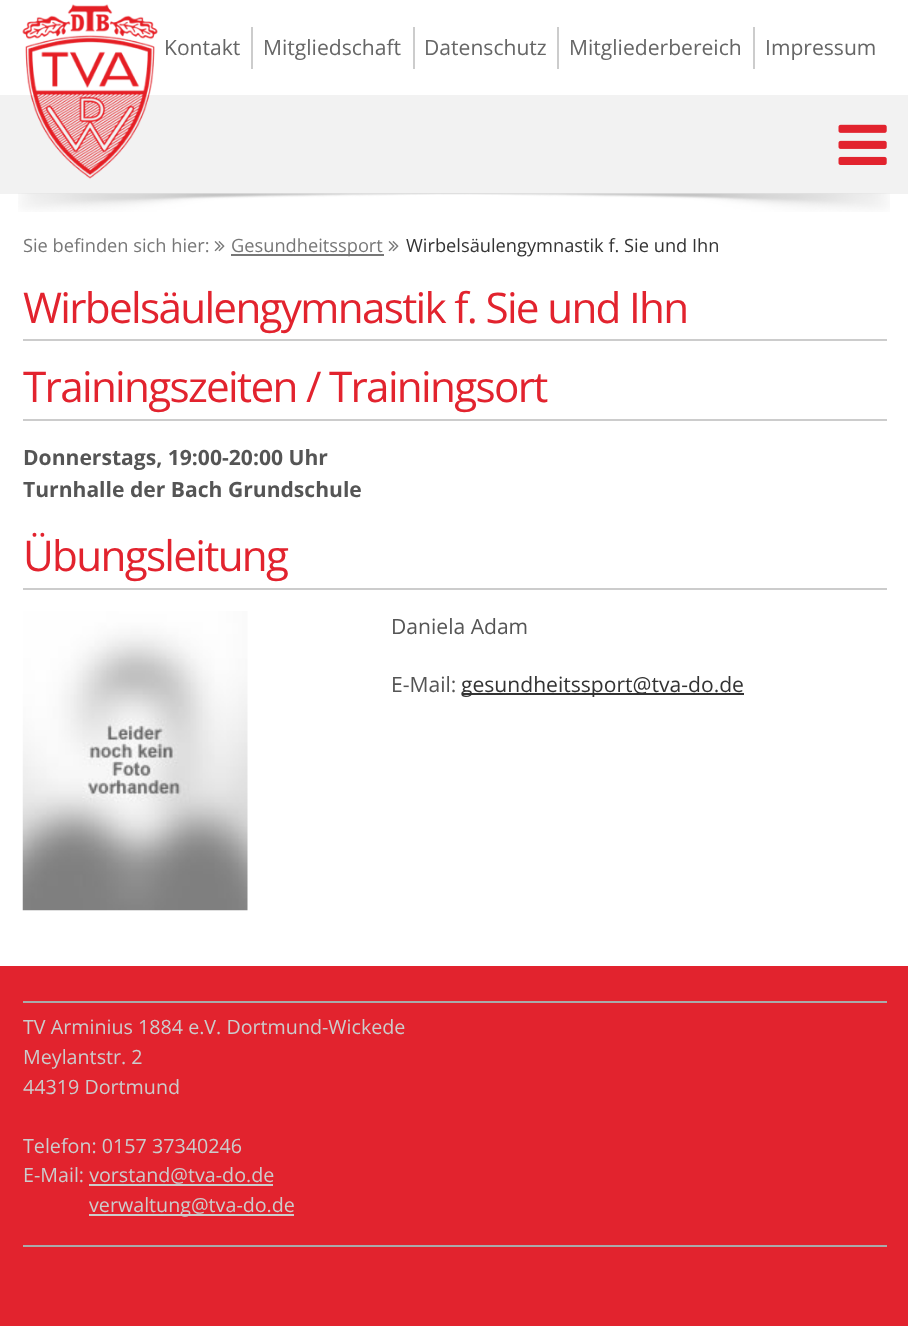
<svg xmlns="http://www.w3.org/2000/svg" width="908" height="1326" viewBox="0 0 908 1326">
  <defs>
    <clipPath id="clip1"><rect x="23" y="194" width="864" height="772"/></clipPath>
  </defs>
  <rect width="100%" height="100%" fill="#ffffff"/>
  <rect x="0" y="95" width="908" height="99" fill="#f2f2f2"/>
  <image x="22" y="4" width="136" height="175" href="img1.png"/>
  <image x="838" y="124" width="49" height="41" href="img2.png"/>
  <text x="164" y="55" font-family="Open Sans" font-size="21.1" fill="#666666">Kontakt</text>
  <rect x="251" y="27" width="2" height="42" fill="#cccccc"/>
  <text x="263" y="55" font-family="Open Sans" font-size="21.1" fill="#666666">Mitgliedschaft</text>
  <rect x="413" y="27" width="2" height="42" fill="#cccccc"/>
  <text x="424" y="55" font-family="Open Sans" font-size="21.1" fill="#666666">Datenschutz</text>
  <rect x="557" y="27" width="2" height="42" fill="#cccccc"/>
  <text x="569" y="55" font-family="Open Sans" font-size="21.1" fill="#666666">Mitgliederbereich</text>
  <rect x="753" y="27" width="2" height="42" fill="#cccccc"/>
  <text x="765" y="55" font-family="Open Sans" font-size="21.1" fill="#666666">Impressum</text>
  <image x="18" y="193" width="872" height="19" href="img3.png"/>
  <text x="23" y="252" font-family="Open Sans" font-size="18.25" fill="#777777">Sie befinden sich hier:</text>
  <image x="214" y="241" width="11" height="11" href="img4.png"/>
  <rect x="231" y="254" width="153" height="2" fill="#777777"/>
  <text x="231" y="252" font-family="Open Sans" font-size="18.25" fill="#777777">Gesundheitssport</text>
  <image x="388" y="241" width="11" height="11" href="img4.png"/>
  <text x="406" y="252" font-family="Open Sans" font-size="18.25" fill="#333333">Wirbelsäulengymnastik f. Sie und Ihn</text>
  <rect x="23" y="339" width="864" height="2" fill="#cccccc"/>
  <text x="23" y="323" font-family="Open Sans" font-size="42.25" letter-spacing="-1.7" fill="#e2232e">Wirbelsäulengymnastik f. Sie und Ihn</text>
  <rect x="23" y="419" width="864" height="2" fill="#cccccc"/>
  <g clip-path="url(#clip1)">
    <text x="23" y="402" font-family="Open Sans" font-size="42.25" letter-spacing="-1.7" fill="#e2232e">Trainingszeiten / Trainingsort</text>
  </g>
  <text x="23" y="465" font-family="Open Sans" font-size="21.1" font-weight="bold" fill="#555555">Donnerstags, 19:00-20:00 Uhr</text>
  <text x="23" y="497" font-family="Open Sans" font-size="21.1" font-weight="bold" fill="#555555">Turnhalle der Bach Grundschule</text>
  <rect x="23" y="588" width="864" height="2" fill="#cccccc"/>
  <text x="23" y="571" font-family="Open Sans" font-size="42.25" letter-spacing="-1.7" fill="#e2232e">Übungsleitung</text>
  <image x="22" y="611" width="226" height="300" href="img5.png"/>
  <text x="391" y="634" font-family="Open Sans" font-size="21.1" fill="#555555">Daniela Adam</text>
  <text x="391" y="692" font-family="Open Sans" font-size="21.1" fill="#555555">E-Mail:</text>
  <rect x="462" y="693" width="282" height="2" fill="#333333"/>
  <text x="461" y="692" font-family="Open Sans" font-size="21.1" fill="#333333">gesundheitssport@tva-do.de</text>
  <rect x="0" y="966" width="908" height="360" fill="#e2232e"/>
  <rect x="23" y="1001" width="864" height="2" fill="#aaaaaa"/>
  <text x="23" y="1034" font-family="Open Sans" font-size="19.7" fill="#cccccc">TV Arminius 1884 e.V. Dortmund-Wickede</text>
  <text x="23" y="1064" font-family="Open Sans" font-size="19.7" fill="#cccccc">Meylantstr. 2</text>
  <text x="23" y="1094" font-family="Open Sans" font-size="19.7" fill="#cccccc">44319 Dortmund</text>
  <text x="23" y="1153" font-family="Open Sans" font-size="19.7" fill="#cccccc">Telefon: 0157 37340246</text>
  <text x="23" y="1182" font-family="Open Sans" font-size="19.7" fill="#cccccc">E-Mail: vorstand@tva-do.de</text>
  <rect x="89" y="1184" width="184" height="2" fill="#cccccc"/>
  <rect x="89" y="1214" width="205" height="2" fill="#cccccc"/>
  <text x="89" y="1212" font-family="Open Sans" font-size="19.7" fill="#cccccc">verwaltung@tva-do.de</text>
  <rect x="23" y="1245" width="864" height="2" fill="#aaaaaa"/>
</svg>
